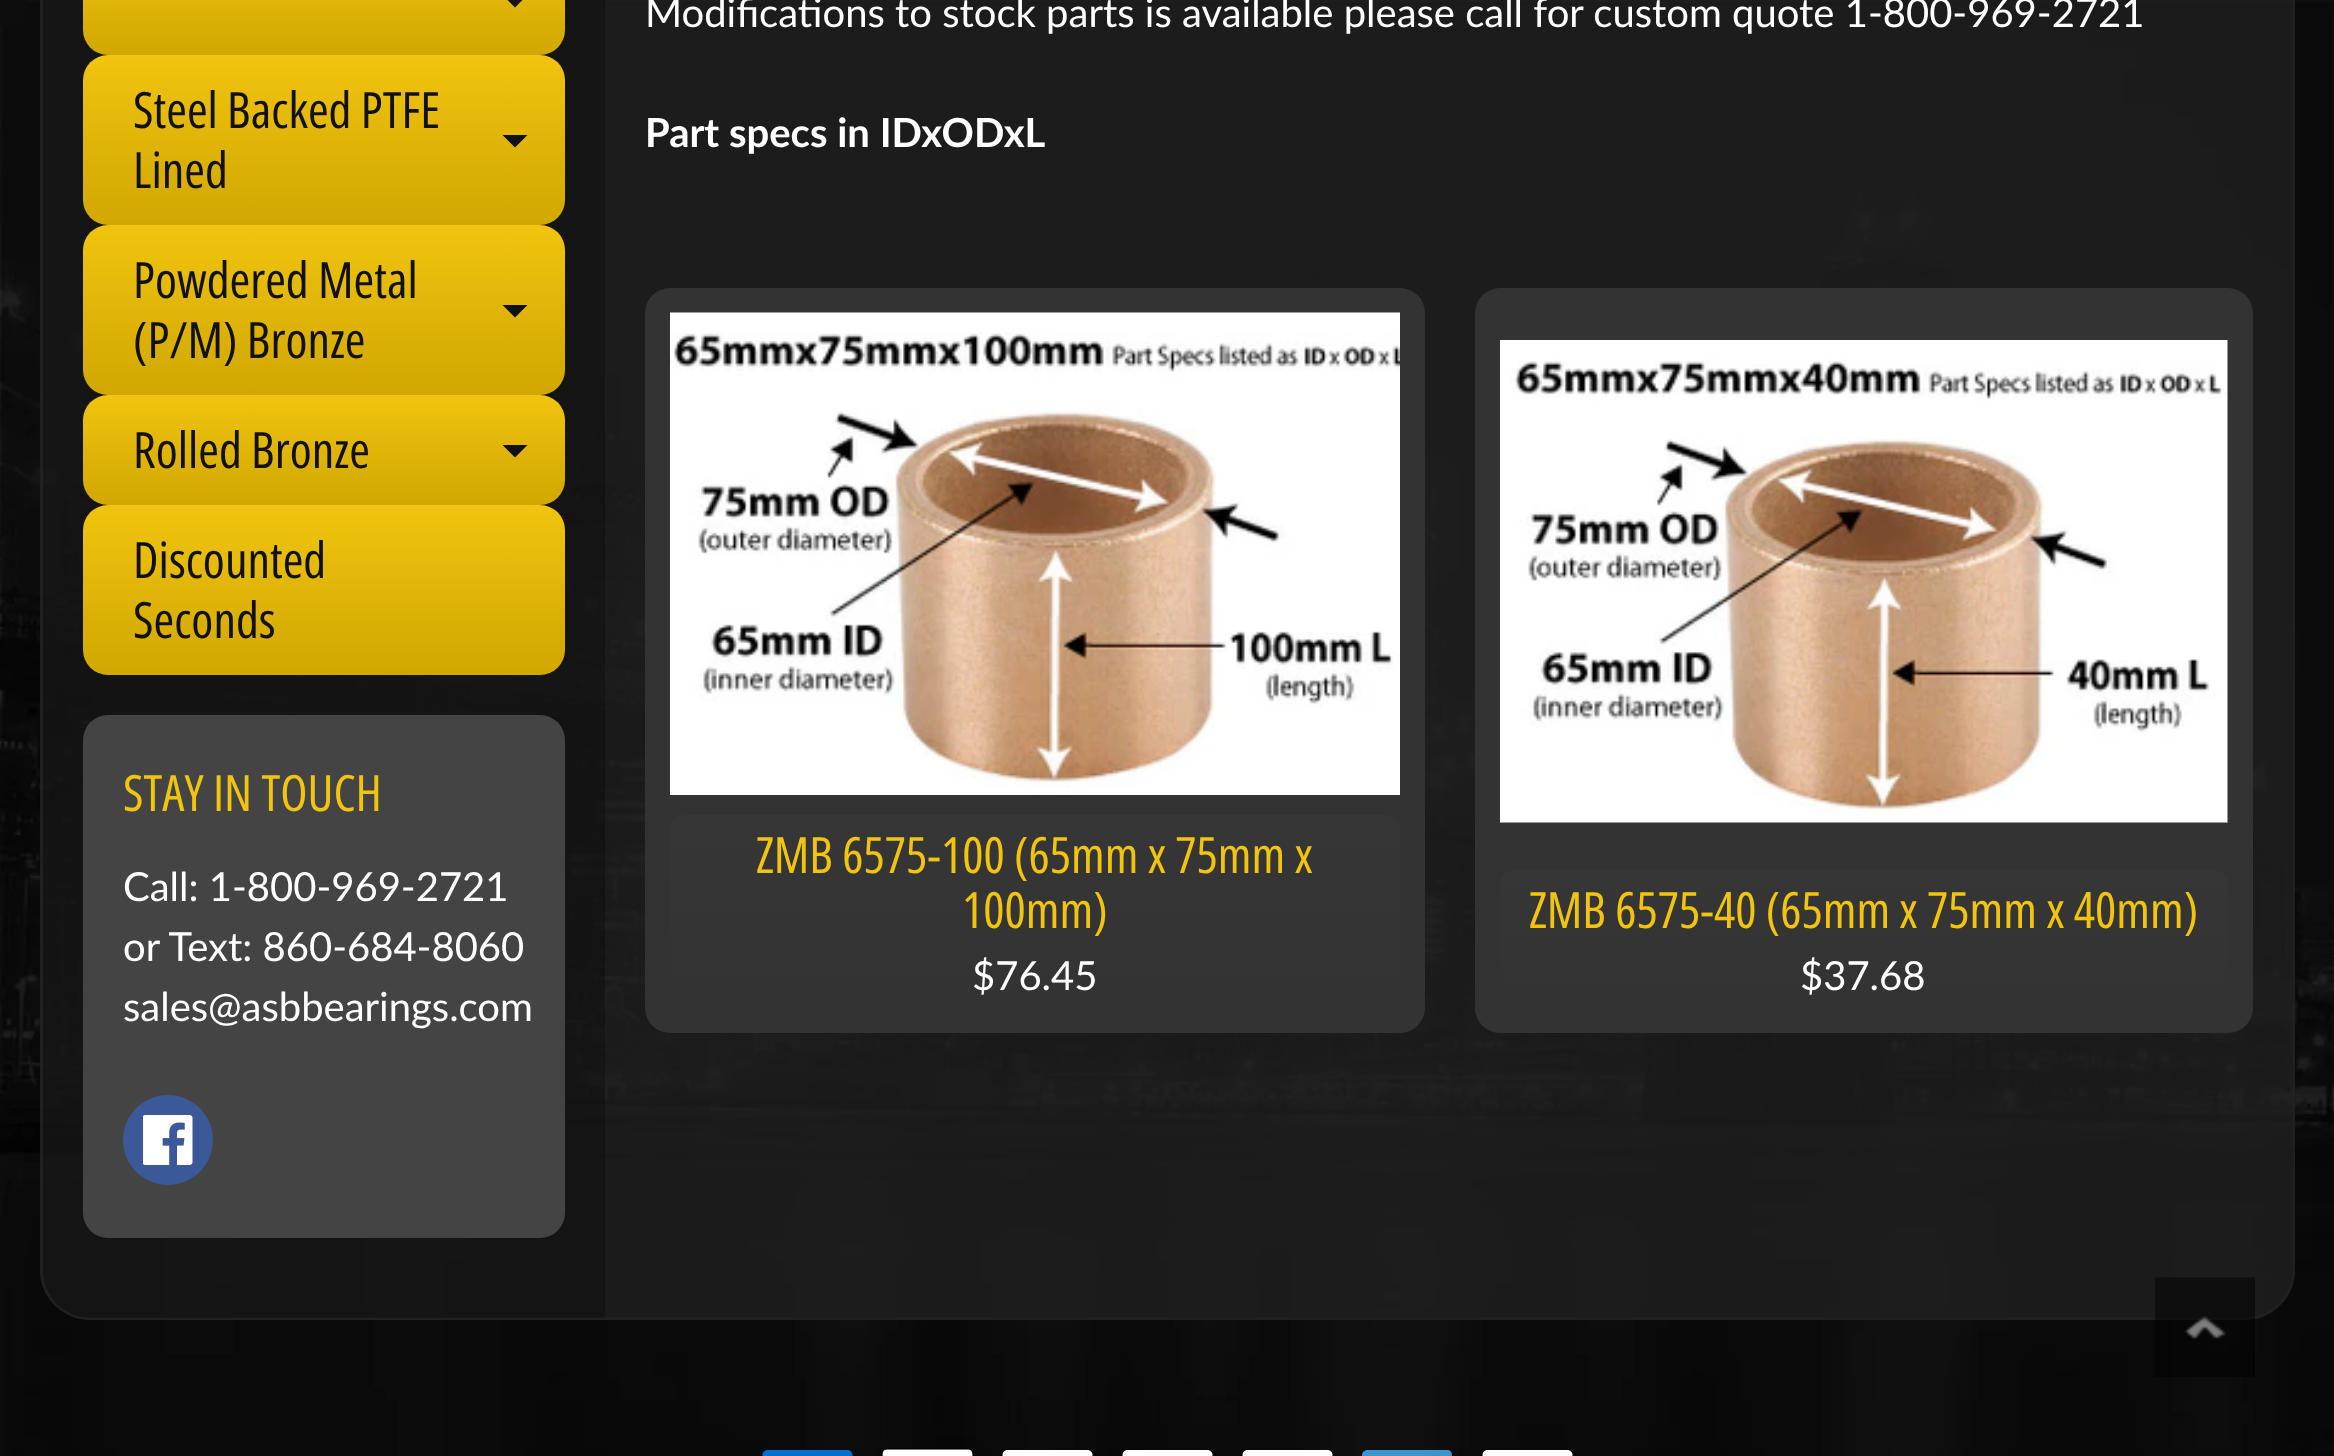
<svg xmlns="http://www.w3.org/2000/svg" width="2334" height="1456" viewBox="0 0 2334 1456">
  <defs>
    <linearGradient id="g1" gradientUnits="userSpaceOnUse" x1="324" y1="-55" x2="324" y2="55"><stop offset="0" stop-color="#f1c40f"/><stop offset="1" stop-color="#d1a701"/></linearGradient>
    <linearGradient id="g2" gradientUnits="userSpaceOnUse" x1="324" y1="55" x2="324" y2="225"><stop offset="0" stop-color="#f1c40f"/><stop offset="1" stop-color="#d1a701"/></linearGradient>
    <linearGradient id="g3" gradientUnits="userSpaceOnUse" x1="324" y1="225" x2="324" y2="395"><stop offset="0" stop-color="#f1c40f"/><stop offset="1" stop-color="#d1a701"/></linearGradient>
    <linearGradient id="g4" gradientUnits="userSpaceOnUse" x1="324" y1="395" x2="324" y2="505"><stop offset="0" stop-color="#f1c40f"/><stop offset="1" stop-color="#d1a701"/></linearGradient>
    <linearGradient id="g5" gradientUnits="userSpaceOnUse" x1="324" y1="505" x2="324" y2="675"><stop offset="0" stop-color="#f1c40f"/><stop offset="1" stop-color="#d1a701"/></linearGradient>
    <linearGradient id="g6" gradientUnits="userSpaceOnUse" x1="1035" y1="815" x2="1035" y2="1008"><stop offset="0" stop-color="#363636"/><stop offset="1" stop-color="#333333"/></linearGradient>
    <linearGradient id="g7" gradientUnits="userSpaceOnUse" x1="1864" y1="870" x2="1864" y2="1008"><stop offset="0" stop-color="#363636"/><stop offset="1" stop-color="#333333"/></linearGradient>
  </defs>
  <rect width="100%" height="100%" fill="#ffffff"/>
  <image x="0" y="0" width="2334" height="1456" href="img1.png"/>
  <rect x="40" y="-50" width="2255" height="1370" rx="50" fill="#222222" fill-opacity="0.75"/>
  <rect x="41.5" y="-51.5" width="2252" height="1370" rx="48.5" fill="none" stroke="#222222" stroke-opacity="0.7" stroke-width="3"/>
  <path d="M91-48H605V1318H91C64.5 1318 43 1296.5 43 1270V0C43-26.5 64.5-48 91-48Z" fill="#000000" fill-opacity="0.25"/>
  <rect x="83" y="-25" width="482" height="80" rx="25" fill="url(#g1)"/>
  <path d="M502.5-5H527.5L515 7.5Z" fill="#111111"/>
  <rect x="83" y="55" width="482" height="170" rx="25" fill="url(#g2)"/>
  <text x="133" y="128" font-family="Open Sans Condensed" font-size="50" fill="#111111">Steel Backed PTFE</text>
  <path d="M502.5 135H527.5L515 147.5Z" fill="#111111"/>
  <text x="133" y="188" font-family="Open Sans Condensed" font-size="50" fill="#111111">Lined</text>
  <rect x="83" y="225" width="482" height="170" rx="25" fill="url(#g3)"/>
  <text x="133" y="298" font-family="Open Sans Condensed" font-size="50" fill="#111111">Powdered Metal</text>
  <path d="M502.5 305H527.5L515 317.5Z" fill="#111111"/>
  <text x="133" y="358" font-family="Open Sans Condensed" font-size="50" fill="#111111">(P/M) Bronze</text>
  <rect x="83" y="395" width="482" height="110" rx="25" fill="url(#g4)"/>
  <text x="133" y="468" font-family="Open Sans Condensed" font-size="50" fill="#111111">Rolled Bronze</text>
  <path d="M502.5 445H527.5L515 457.5Z" fill="#111111"/>
  <rect x="83" y="505" width="482" height="170" rx="25" fill="url(#g5)"/>
  <text x="133" y="578" font-family="Open Sans Condensed" font-size="50" fill="#111111">Discounted</text>
  <text x="133" y="638" font-family="Open Sans Condensed" font-size="50" fill="#111111">Seconds</text>
  <rect x="83" y="715" width="482" height="523" rx="25" fill="#444444"/>
  <text x="123" y="811" font-family="Open Sans Condensed" font-size="50" fill="#f1c40f">STAY IN TOUCH</text>
  <text x="123" y="901" font-family="Lato" font-size="40" fill="#ffffff">Call: 1-800-969-2721</text>
  <text x="123" y="961" font-family="Lato" font-size="40" fill="#ffffff">or Text: 860-684-8060</text>
  <text x="123" y="1021" font-family="Lato" font-size="40" fill="#ffffff">sales@asbbearings.com</text>
  <circle cx="168" cy="1140" r="45" fill="#3b5998"/>
  <image x="143" y="1115" width="50" height="50" href="img2.png"/>
  <text x="645" y="27" font-family="Lato" font-size="40" fill="#ffffff">Modifications to stock parts is available please call for custom quote 1-800-969-2721</text>
  <text x="645" y="147" font-family="Lato" font-size="40" font-weight="bold" fill="#ffffff">Part specs in IDxODxL</text>
  <rect x="645" y="288" width="780" height="745" rx="25" fill="#333333"/>
  <image x="670" y="312" width="730" height="483" href="img3.png"/>
  <rect x="670" y="815" width="730" height="193" rx="15" fill="url(#g6)"/>
  <text x="756" y="873" font-family="Open Sans Condensed" font-size="50" fill="#f1c40f">ZMB 6575-100 (65mm x 75mm x</text>
  <text x="962" y="928" font-family="Open Sans Condensed" font-size="50" fill="#f1c40f">100mm)</text>
  <text x="972" y="990" font-family="Lato" font-size="40" fill="#ffffff">$76.45</text>
  <rect x="1475" y="288" width="778" height="745" rx="25" fill="#333333"/>
  <image x="1500" y="340" width="728" height="483" href="img4.png"/>
  <rect x="1500" y="870" width="728" height="138" rx="15" fill="url(#g7)"/>
  <text x="1529" y="928" font-family="Open Sans Condensed" font-size="50" fill="#f1c40f">ZMB 6575-40 (65mm x 75mm x 40mm)</text>
  <text x="1800" y="990" font-family="Lato" font-size="40" fill="#ffffff">$37.68</text>
  <image x="2155" y="1277" width="100" height="100" href="img5.png"/>
  <image x="762" y="1450" width="91" height="6" href="img6.png"/>
  <image x="881" y="1448" width="93" height="8" href="img7.png"/>
  <image x="1002" y="1450" width="91" height="6" href="img8.png"/>
  <image x="1122" y="1450" width="91" height="6" href="img9.png"/>
  <image x="1242" y="1450" width="91" height="6" href="img10.png"/>
  <path d="M1448 1450C1450 1450 1452 1452 1452 1455V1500C1452 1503 1450 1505 1448 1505H1368C1365 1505 1362 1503 1362 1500V1455C1362 1452 1365 1450 1368 1450H1448" fill="#3d95ce" fill-rule="evenodd"/>
  <image x="1482" y="1450" width="91" height="6" href="img11.png"/>
</svg>
